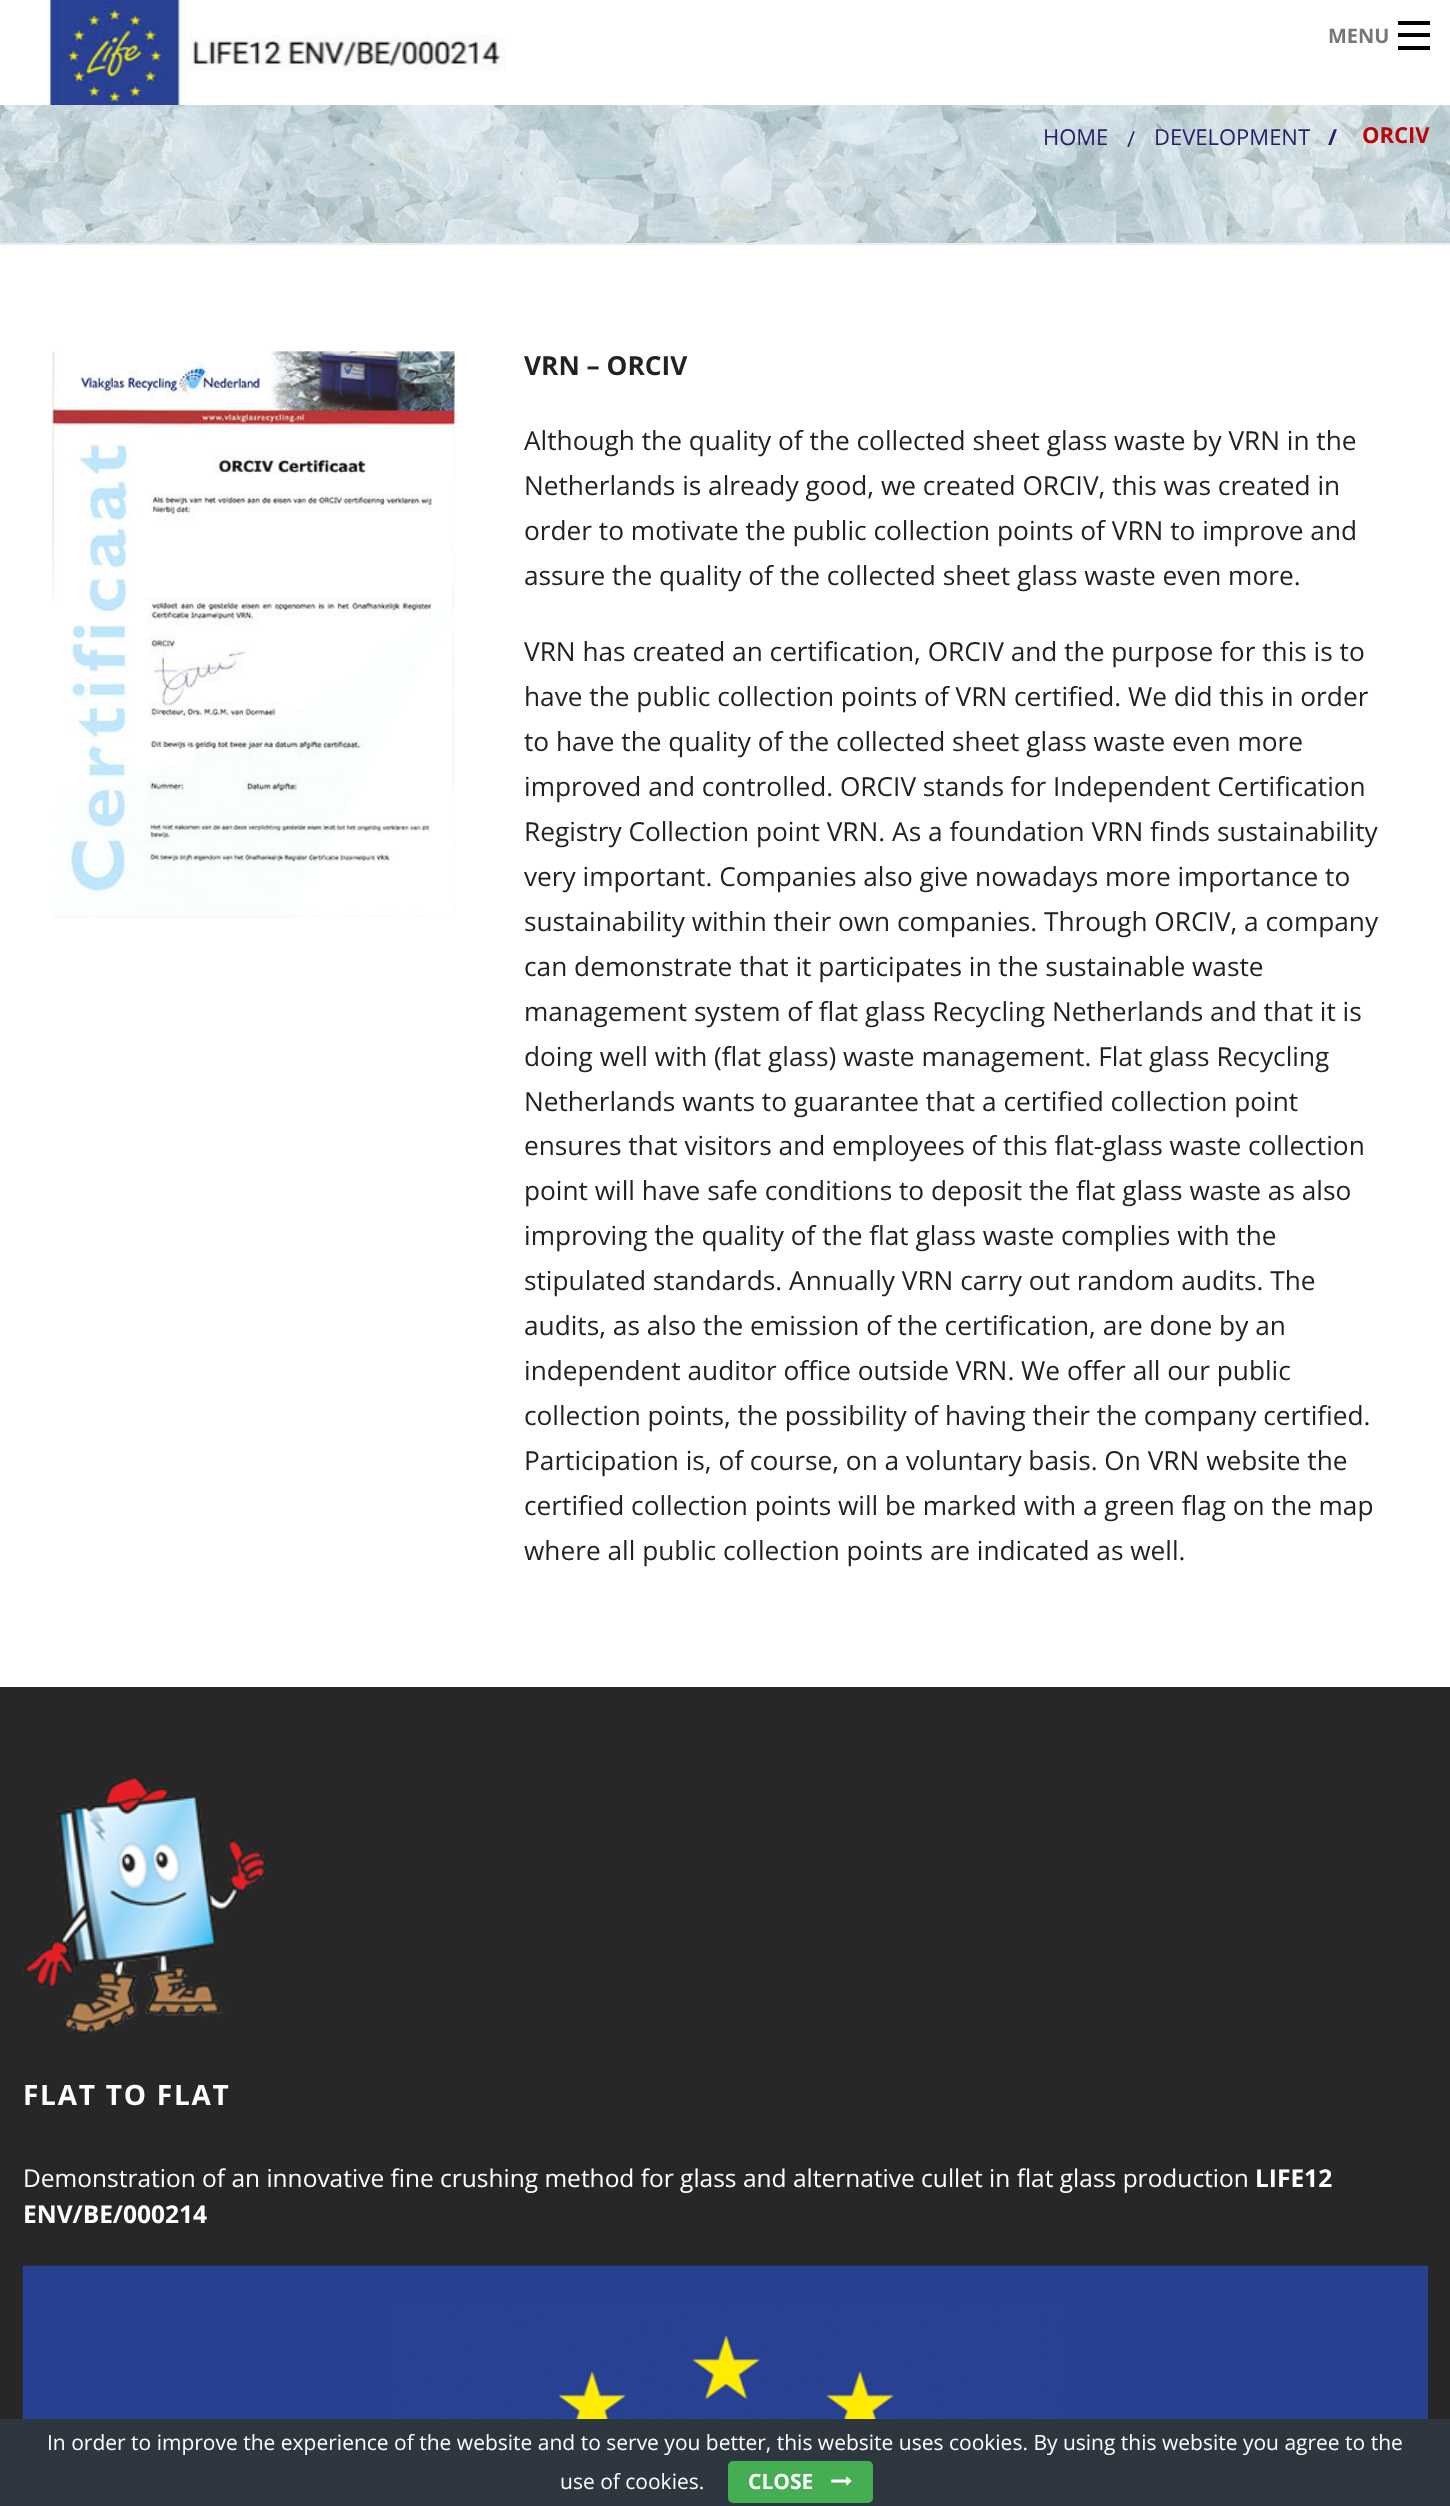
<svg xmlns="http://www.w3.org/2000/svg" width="1450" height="2506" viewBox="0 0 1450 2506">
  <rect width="100%" height="100%" fill="#ffffff"/>
  <image x="48" y="0" width="458" height="105" href="img1.png"/>
  <text x="1328" y="43" font-family="Open Sans" font-size="20" font-weight="bold" fill="#777777">MENU</text>
  <rect x="1398" y="46" width="32" height="4" fill="#000000"/>
  <rect x="1398" y="33" width="32" height="4" fill="#000000"/>
  <rect x="1398" y="21" width="32" height="4" fill="#000000"/>
  <image x="0" y="105" width="1450" height="138" href="img2.png"/>
  <rect x="0" y="243" width="1450" height="2" fill="#ebeded"/>
  <text x="1043" y="145" font-family="Open Sans" font-size="22" fill="#231f64">HOME</text>
  <text x="1127" y="147" font-family="Open Sans" font-size="22" fill="#231f64">/</text>
  <text x="1154" y="145" font-family="Open Sans" font-size="22" fill="#231f64">DEVELOPMENT</text>
  <text x="1328" y="145" font-family="Open Sans" font-size="22" font-weight="bold" fill="#231f64">/</text>
  <text x="1362" y="143" font-family="Open Sans" font-size="22" font-weight="bold" fill="#bc0404">ORCIV</text>
  <image x="52" y="351" width="403" height="567" href="img3.png"/>
  <text x="524" y="375" font-family="Open Sans" font-size="26.25" font-weight="bold" fill="#222222">VRN – ORCIV</text>
  <text x="524" y="450" font-family="Open Sans" font-size="26.25" fill="#222222">Although the quality of the collected sheet glass waste by VRN in the</text>
  <text x="524" y="495" font-family="Open Sans" font-size="26.25" fill="#222222">Netherlands is already good, we created ORCIV, this was created in</text>
  <text x="524" y="540" font-family="Open Sans" font-size="26.25" fill="#222222">order to motivate the public collection points of VRN to improve and</text>
  <text x="524" y="585" font-family="Open Sans" font-size="26.25" fill="#222222">assure the quality of the collected sheet glass waste even more.</text>
  <text x="524" y="661" font-family="Open Sans" font-size="26.25" fill="#222222">VRN has created an certification, ORCIV and the purpose for this is to</text>
  <text x="524" y="706" font-family="Open Sans" font-size="26.25" fill="#222222">have the public collection points of VRN certified. We did this in order</text>
  <text x="524" y="751" font-family="Open Sans" font-size="26.25" fill="#222222">to have the quality of the collected sheet glass waste even more</text>
  <text x="524" y="796" font-family="Open Sans" font-size="26.25" fill="#222222">improved and controlled. ORCIV stands for Independent Certification</text>
  <text x="524" y="841" font-family="Open Sans" font-size="26.25" fill="#222222">Registry Collection point VRN. As a foundation VRN finds sustainability</text>
  <text x="524" y="886" font-family="Open Sans" font-size="26.25" fill="#222222">very important. Companies also give nowadays more importance to</text>
  <text x="524" y="931" font-family="Open Sans" font-size="26.25" fill="#222222">sustainability within their own companies. Through ORCIV, a company</text>
  <text x="524" y="976" font-family="Open Sans" font-size="26.25" fill="#222222">can demonstrate that it participates in the sustainable waste</text>
  <text x="524" y="1021" font-family="Open Sans" font-size="26.25" fill="#222222">management system of flat glass Recycling Netherlands and that it is</text>
  <text x="524" y="1066" font-family="Open Sans" font-size="26.25" fill="#222222">doing well with (flat glass) waste management. Flat glass Recycling</text>
  <text x="524" y="1111" font-family="Open Sans" font-size="26.25" fill="#222222">Netherlands wants to guarantee that a certified collection point</text>
  <text x="524" y="1155" font-family="Open Sans" font-size="26.25" fill="#222222">ensures that visitors and employees of this flat-glass waste collection</text>
  <text x="524" y="1200" font-family="Open Sans" font-size="26.25" fill="#222222">point will have safe conditions to deposit the flat glass waste as also</text>
  <text x="524" y="1245" font-family="Open Sans" font-size="26.25" fill="#222222">improving the quality of the flat glass waste complies with the</text>
  <text x="524" y="1290" font-family="Open Sans" font-size="26.25" fill="#222222">stipulated standards. Annually VRN carry out random audits. The</text>
  <text x="524" y="1335" font-family="Open Sans" font-size="26.25" fill="#222222">audits, as also the emission of the certification, are done by an</text>
  <text x="524" y="1380" font-family="Open Sans" font-size="26.25" fill="#222222">independent auditor office outside VRN. We offer all our public</text>
  <text x="524" y="1425" font-family="Open Sans" font-size="26.25" fill="#222222">collection points, the possibility of having their the company certified.</text>
  <text x="524" y="1470" font-family="Open Sans" font-size="26.25" fill="#222222">Participation is, of course, on a voluntary basis. On VRN website the</text>
  <text x="524" y="1515" font-family="Open Sans" font-size="26.25" fill="#222222">certified collection points will be marked with a green flag on the map</text>
  <text x="524" y="1560" font-family="Open Sans" font-size="26.25" fill="#222222">where all public collection points are indicated as well.</text>
  <rect x="0" y="1687" width="1450" height="732" fill="#272727"/>
  <image x="23" y="1776" width="245" height="258" href="img4.png"/>
  <text x="23" y="2105" font-family="Open Sans" font-size="28" font-weight="bold" letter-spacing="1.75" fill="#ffffff">FLAT TO FLAT</text>
  <text x="23" y="2187" font-family="Open Sans" font-size="24.5" fill="#ffffff">Demonstration of an innovative fine crushing method for glass and alternative cullet in flat glass production</text>
  <text x="1255" y="2187" font-family="Open Sans" font-size="24.5" font-weight="bold" fill="#ffffff">LIFE12</text>
  <text x="23" y="2223" font-family="Open Sans" font-size="24.5" font-weight="bold" fill="#ffffff">ENV/BE/000214</text>
  <image x="22" y="2265" width="1406" height="154" href="img5.png"/>
  <rect x="0" y="2419" width="1450" height="87" fill="#2e363f"/>
  <text x="47" y="2450" font-family="Open Sans" font-size="21" fill="#ffffff">In order to improve the experience of the website and to serve you better, this website uses cookies. By using this website you agree to the</text>
  <text x="560" y="2489" font-family="Open Sans" font-size="21" fill="#ffffff">use of cookies.</text>
  <rect x="728" y="2461" width="145" height="42" rx="5" fill="#45ae52"/>
  <text x="748" y="2489" font-family="Open Sans" font-size="21" font-weight="bold" fill="#ffffff">CLOSE</text>
  <image x="831" y="2476" width="21" height="10" href="img6.png"/>
</svg>
